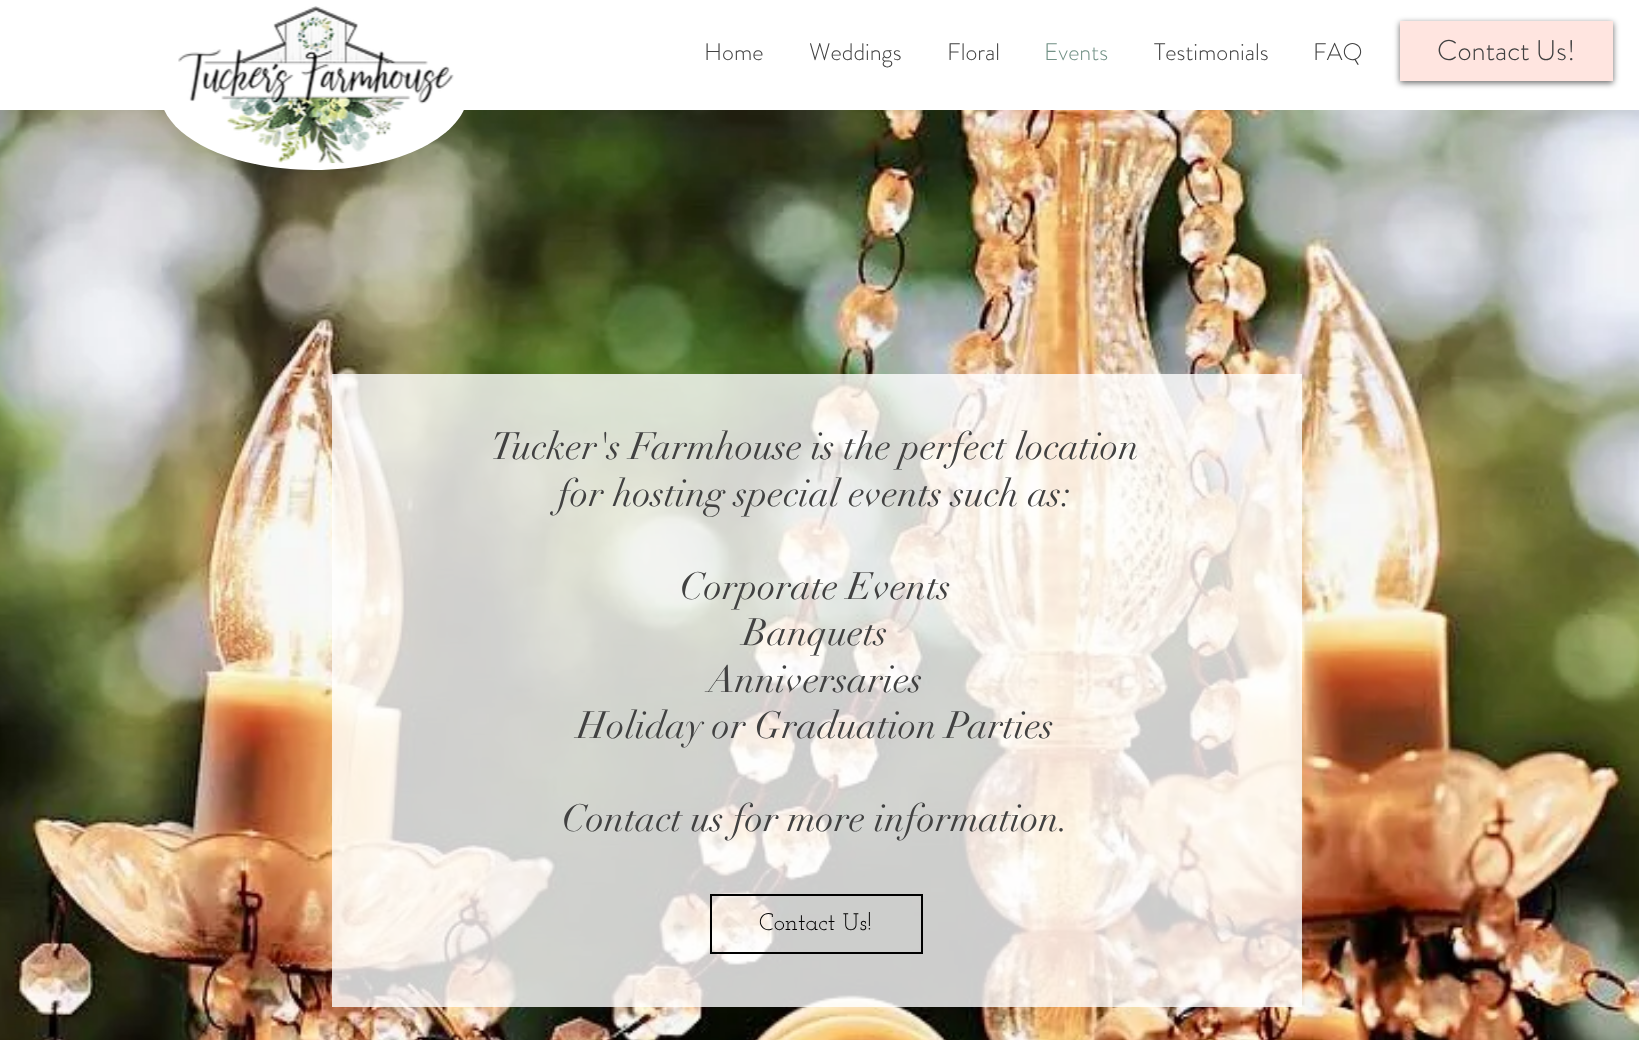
<svg xmlns="http://www.w3.org/2000/svg" width="1639" height="1040" viewBox="0 0 1639 1040">
  <defs>
    <filter id="blur1" x="-50%" y="-200%" width="200%" height="500%"><feGaussianBlur stdDeviation="3"/></filter>
  </defs>
  <rect width="100%" height="100%" fill="#ffffff"/>
  <image x="0" y="110" width="1639" height="930" href="img2.png"/>
  <path d="M314 170C399 170 468 135 468 92H160C160 135 229 170 314 170Z" fill="#ffffff"/>
  <image x="178" y="6" width="276" height="158" href="img1.png"/>
  <text x="704" y="60" font-family="'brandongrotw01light'" font-size="24" font-weight="300" fill="#414141">Home</text>
  <text x="809" y="60" font-family="'brandongrotw01light'" font-size="24" font-weight="300" fill="#414141">Weddings</text>
  <text x="947" y="60" font-family="'brandongrotw01light'" font-size="24" font-weight="300" fill="#414141">Floral</text>
  <text x="1044" y="60" font-family="'brandongrotw01light'" font-size="24" font-weight="300" fill="#739287">Events</text>
  <text x="1154" y="60" font-family="'brandongrotw01light'" font-size="24" font-weight="300" fill="#414141">Testimonials</text>
  <text x="1313" y="60" font-family="'brandongrotw01light'" font-size="24" font-weight="300" fill="#414141">FAQ</text>
  <rect x="1400" y="23" width="213" height="60" fill="#000000" fill-opacity="0.6" filter="url(#blur1)"/>
  <rect x="1400" y="21" width="213" height="60" fill="#ffe5e0"/>
  <text x="1437" y="60" font-family="'brandongrotw01light'" font-size="28.5" font-weight="300" fill="#414141">Contact Us!</text>
  <rect x="332" y="374" width="970" height="633" fill="#ffffff" fill-opacity="0.8"/>
  <text x="491" y="459" font-family="didot" font-size="37.5" fill="#414141">Tucker's Farmhouse is the perfect location</text>
  <text x="558" y="506" font-family="didot" font-size="37.5" fill="#414141">for hosting special events such as:</text>
  <text x="680" y="599" font-family="didot" font-size="37.5" fill="#414141">Corporate Events</text>
  <text x="743" y="645" font-family="didot" font-size="37.5" fill="#414141">Banquets</text>
  <text x="708" y="692" font-family="didot" font-size="37.5" fill="#414141">Anniversaries</text>
  <text x="577" y="738" font-family="didot" font-size="37.5" fill="#414141">Holiday or Graduation Parties</text>
  <text x="562" y="831" font-family="didot" font-size="37.5" fill="#414141">Contact us for more information.</text>
  <rect x="711" y="895" width="211" height="58" fill="none" stroke="#000000" stroke-width="2"/>
  <text x="759" y="930" font-family="Josefin Slab" font-size="24" fill="#000000">Contact Us!</text>
</svg>
